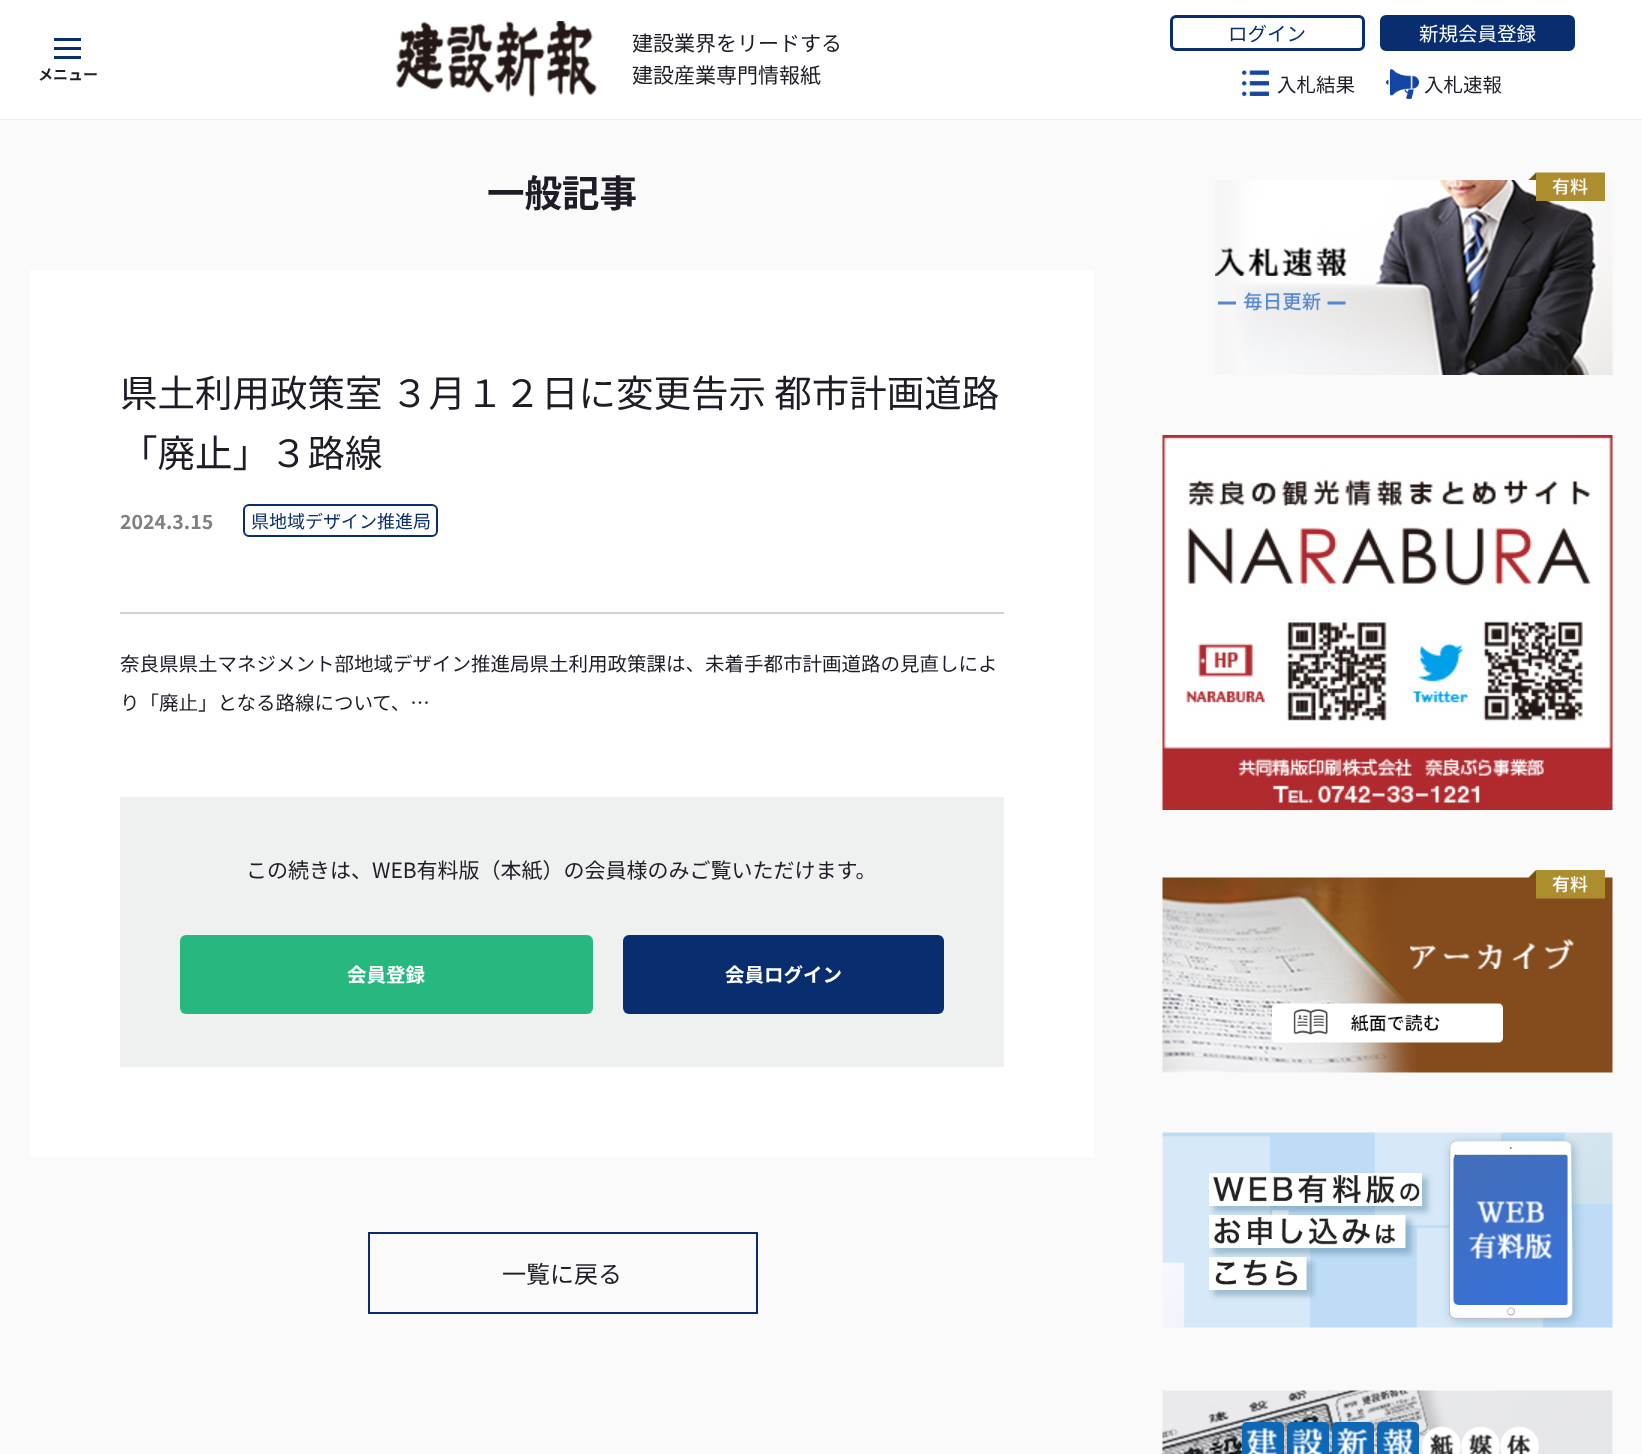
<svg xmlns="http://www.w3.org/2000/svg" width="1642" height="1454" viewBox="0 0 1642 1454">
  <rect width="100%" height="100%" fill="#ffffff"/>
  <rect x="0" y="119" width="1642" height="1" fill="#eeeeee"/>
  <rect x="54" y="38" width="27" height="3" fill="#092e70"/>
  <rect x="54" y="47" width="27" height="3" fill="#092e70"/>
  <rect x="54" y="56" width="27" height="3" fill="#092e70"/>
  <text x="38" y="80" font-family="Noto Sans JP" font-size="15" font-weight="bold" fill="#201c27">メニュー</text>
  <image x="396" y="21" width="201" height="77" href="img1.png"/>
  <text x="632" y="51" font-family="Noto Sans JP" font-size="21" fill="#201c27">建設業界をリードする</text>
  <text x="632" y="83" font-family="Noto Sans JP" font-size="21" fill="#201c27">建設産業専門情報紙</text>
  <rect x="1171.5" y="16.5" width="192" height="33" rx="4.5" fill="none" stroke="#092e70" stroke-width="3"/>
  <text x="1228" y="41" font-family="Noto Sans JP" font-size="19.5" fill="#092e70">ログイン</text>
  <rect x="1381.5" y="16.5" width="192" height="33" rx="4.5" fill="#092e70" stroke="#092e70" stroke-width="3"/>
  <text x="1419" y="41" font-family="Noto Sans JP" font-size="19.5" fill="#ffffff">新規会員登録</text>
  <image x="1242" y="70" width="27" height="26" href="img2.png"/>
  <text x="1277" y="92" font-family="Noto Sans JP" font-size="19.5" fill="#201c27">入札結果</text>
  <image x="1386" y="69" width="33" height="30" href="img3.png"/>
  <text x="1424" y="92" font-family="Noto Sans JP" font-size="19.5" fill="#201c27">入札速報</text>
  <rect x="0" y="120" width="1642" height="1334" fill="#fafafa"/>
  <text x="487" y="207" font-family="Noto Sans JP" font-size="37.5" font-weight="bold" fill="#201c27">一般記事</text>
  <rect x="30" y="270" width="1064" height="887" fill="#ffffff"/>
  <text x="120" y="407" font-family="Noto Sans JP" font-size="37.5" fill="#201c27">県土利用政策室 ３月１２日に変更告示 都市計画道路</text>
  <text x="120" y="467" font-family="Noto Sans JP" font-size="37.5" fill="#201c27">「廃止」３路線</text>
  <text x="120" y="529" font-family="Noto Sans JP" font-size="19.5" font-weight="bold" fill="#808080">2024.3.15</text>
  <rect x="244" y="505" width="193" height="31" rx="5" fill="none" stroke="#092e70" stroke-width="2"/>
  <text x="251" y="528" font-family="Noto Sans JP" font-size="18" fill="#092e70">県地域デザイン推進局</text>
  <rect x="120" y="612" width="884" height="2" fill="#ccd1db"/>
  <text x="120" y="671" font-family="Noto Sans JP" font-size="19.5" fill="#201c27">奈良県県土マネジメント部地域デザイン推進局県土利用政策課は、未着手都市計画道路の見直しによ</text>
  <text x="120" y="710" font-family="Noto Sans JP" font-size="19.5" fill="#201c27">り「廃止」となる路線について、…</text>
  <rect x="120" y="797" width="884" height="270" fill="#eff1f1"/>
  <text x="246" y="878" font-family="Noto Sans JP" font-size="21" fill="#201c27">この続きは、WEB有料版（本紙）の会員様のみご覧いただけます。</text>
  <rect x="180" y="935" width="413" height="79" rx="6" fill="#26b87f"/>
  <text x="347" y="982" font-family="Noto Sans JP" font-size="19.5" font-weight="bold" fill="#ffffff">会員登録</text>
  <rect x="623" y="935" width="321" height="79" rx="6" fill="#092e70"/>
  <text x="725" y="982" font-family="Noto Sans JP" font-size="19.5" font-weight="bold" fill="#ffffff">会員ログイン</text>
  <rect x="369" y="1233" width="388" height="80" fill="none" stroke="#092e70" stroke-width="2"/>
  <text x="502" y="1283" font-family="Noto Sans JP" font-size="24" fill="#201c27">一覧に戻る</text>
  <image x="1215" y="172" width="398" height="203" href="img4.png"/>
  <image x="1162" y="435" width="451" height="375" href="img5.png"/>
  <image x="1162" y="870" width="451" height="203" href="img6.png"/>
  <image x="1162" y="1132" width="451" height="196" href="img7.png"/>
  <image x="1162" y="1390" width="451" height="64" href="img8.png"/>
</svg>
